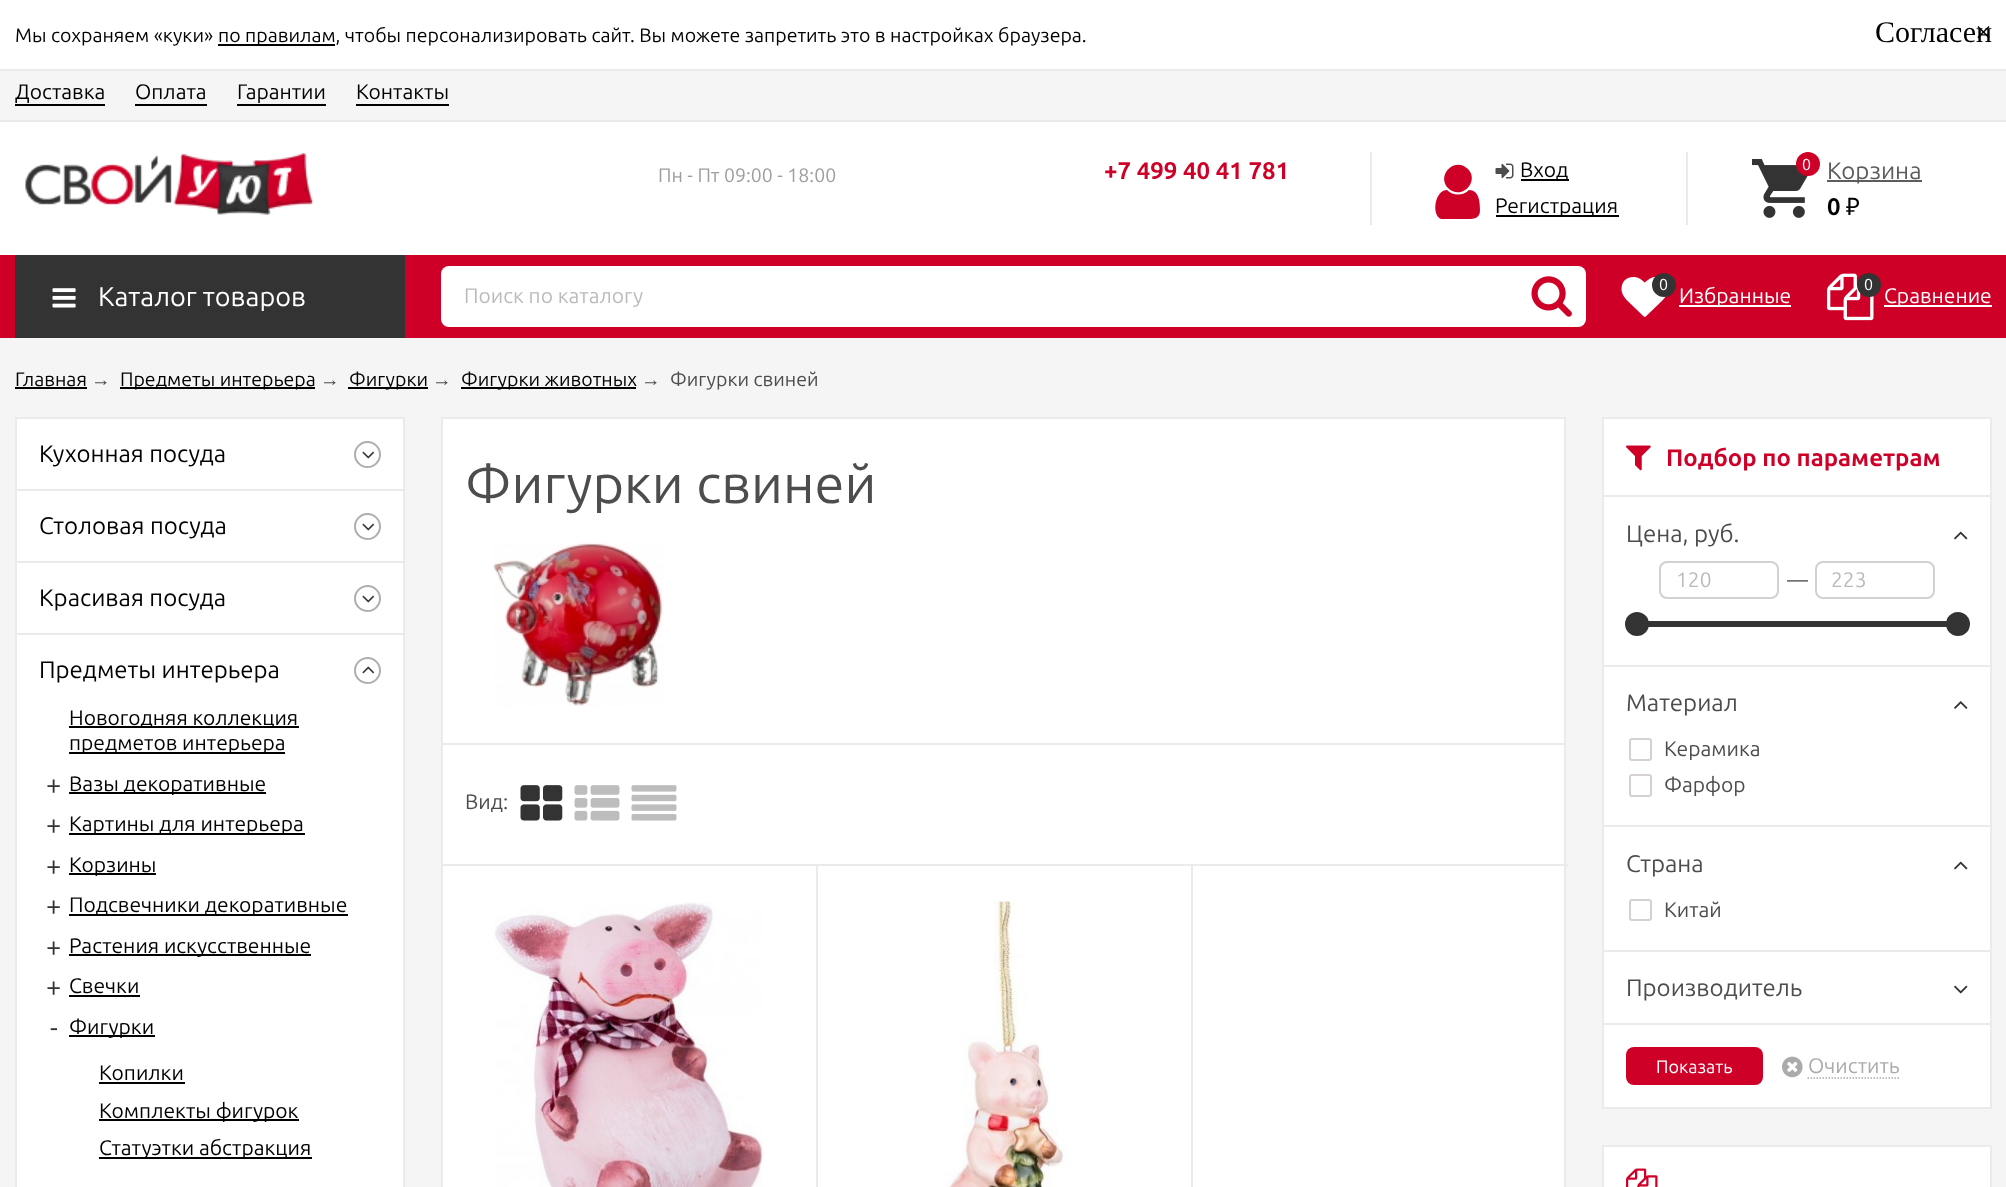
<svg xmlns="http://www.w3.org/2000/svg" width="2006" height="1187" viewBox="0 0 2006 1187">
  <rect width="100%" height="100%" fill="#f5f5f6"/>
  <rect x="0" y="0" width="2006" height="69" fill="#ffffff"/>
  <rect x="0" y="69" width="2006" height="2" fill="#ebebeb"/>
  <text x="15" y="42" font-family="Ubuntu" font-size="19.5" fill="#000000">Мы сохраняем «куки»</text>
  <rect x="218" y="44" width="117" height="2" fill="#000000"/>
  <text x="218" y="42" font-family="Ubuntu" font-size="19.5" fill="#000000">по правилам, чтобы персонализировать сайт. Вы можете запретить это в настройках браузера.</text>
  <text x="1875" y="42" font-family="Liberation Serif" font-size="30" fill="#000000">Согласен</text>
  <text x="1975" y="42" font-family="Liberation Serif" font-size="30" fill="#000000">×</text>
  <rect x="0" y="120" width="2006" height="2" fill="#ebebeb"/>
  <text x="15" y="99" font-family="Ubuntu" font-size="21" fill="#000000">Доставка</text>
  <rect x="15" y="104" width="90" height="2" fill="#000000"/>
  <text x="135" y="99" font-family="Ubuntu" font-size="21" fill="#000000">Оплата</text>
  <rect x="135" y="104" width="72" height="2" fill="#000000"/>
  <text x="237" y="99" font-family="Ubuntu" font-size="21" fill="#000000">Гарантии</text>
  <rect x="237" y="104" width="89" height="2" fill="#000000"/>
  <text x="356" y="99" font-family="Ubuntu" font-size="21" fill="#000000">Контакты</text>
  <rect x="356" y="104" width="93" height="2" fill="#000000"/>
  <rect x="0" y="122" width="2006" height="133" fill="#ffffff"/>
  <image x="25" y="153" width="288" height="62" href="img1.png"/>
  <text x="658" y="182" font-family="Ubuntu" font-size="19.5" fill="#9e9e9e">Пн - Пт 09:00 - 18:00</text>
  <text x="1104" y="179" font-family="Ubuntu" font-size="24" font-weight="bold" fill="#cf0028">+7 499 40 41 781</text>
  <rect x="1686" y="152" width="2" height="73" fill="#ebebeb"/>
  <rect x="1370" y="152" width="2" height="73" fill="#ebebeb"/>
  <path d="M1480 210C1480 218 1475 219 1468 219H1441C1431 215 1435 190 1447 190C1453 196 1463 196 1469 190C1479 190 1480 202 1480 210ZM1468 169C1480 182 1461 201 1448 188C1436 175 1455 156 1468 169Z" fill="#cf0028"/>
  <image x="1495" y="163" width="19" height="16" href="img2.png"/>
  <rect x="1521" y="179" width="48" height="2" fill="#000000"/>
  <text x="1520" y="177" font-family="Ubuntu" font-size="21" fill="#000000">Вход</text>
  <rect x="1496" y="215" width="123" height="2" fill="#000000"/>
  <text x="1495" y="213" font-family="Ubuntu" font-size="21" fill="#000000">Регистрация</text>
  <image x="1752" y="159" width="56" height="59" href="img3.png"/>
  <circle cx="1808" cy="164" r="12" fill="#cf0028"/>
  <text x="1802" y="170" font-family="Ubuntu" font-size="16" fill="#ffffff">0</text>
  <rect x="1827" y="180" width="95" height="2" fill="#5d5d5d"/>
  <text x="1827" y="179" font-family="Ubuntu" font-size="24" fill="#5d5d5d">Корзина</text>
  <text x="1827" y="215" font-family="Ubuntu" font-size="24" font-weight="bold" fill="#000000">0</text>
  <text x="1846" y="215" font-family="Noto Sans" font-size="24" fill="#000000">₽</text>
  <rect x="0" y="255" width="2006" height="83" fill="#cf0028"/>
  <rect x="15" y="255" width="390" height="83" fill="#333333"/>
  <image x="52" y="288" width="24" height="20" href="img4.png"/>
  <text x="98" y="306" font-family="Ubuntu" font-size="27" fill="#ffffff">Каталог товаров</text>
  <rect x="441" y="266" width="1145" height="61" rx="8" fill="#ffffff"/>
  <text x="464" y="303" font-family="Ubuntu" font-size="21" fill="#bbbbbb">Поиск по каталогу</text>
  <image x="1531" y="276" width="41" height="41" href="img5.png"/>
  <image x="1621" y="277" width="45" height="40" href="img6.png"/>
  <circle cx="1664" cy="285" r="12" fill="#333333"/>
  <text x="1659" y="290" font-family="Ubuntu" font-size="16" fill="#ffffff">0</text>
  <rect x="1679" y="305" width="112" height="2" fill="#ffffff"/>
  <text x="1679" y="303" font-family="Ubuntu" font-size="21" fill="#ffffff">Избранные</text>
  <image x="1827" y="273" width="47" height="48" href="img7.png"/>
  <circle cx="1869" cy="285" r="12" fill="#333333"/>
  <text x="1864" y="290" font-family="Ubuntu" font-size="16" fill="#ffffff">0</text>
  <rect x="1884" y="305" width="108" height="2" fill="#ffffff"/>
  <text x="1884" y="303" font-family="Ubuntu" font-size="21" fill="#ffffff">Сравнение</text>
  <text x="15" y="386" font-family="Ubuntu" font-size="19.5" fill="#000000">Главная</text>
  <rect x="15" y="387" width="72" height="2" fill="#000000"/>
  <text x="91" y="386" font-family="Liberation Sans" font-size="19.5" fill="#4d4d4d">→</text>
  <rect x="120" y="387" width="195" height="2" fill="#000000"/>
  <text x="120" y="386" font-family="Ubuntu" font-size="19.5" fill="#000000">Предметы интерьера</text>
  <text x="320" y="386" font-family="Liberation Sans" font-size="19.5" fill="#4d4d4d">→</text>
  <rect x="348" y="387" width="80" height="2" fill="#000000"/>
  <text x="349" y="386" font-family="Ubuntu" font-size="19.5" fill="#000000">Фигурки</text>
  <text x="432" y="386" font-family="Liberation Sans" font-size="19.5" fill="#4d4d4d">→</text>
  <rect x="461" y="387" width="175" height="2" fill="#000000"/>
  <text x="461" y="386" font-family="Ubuntu" font-size="19.5" fill="#000000">Фигурки животных</text>
  <text x="641" y="386" font-family="Liberation Sans" font-size="19.5" fill="#4d4d4d">→</text>
  <text x="670" y="386" font-family="Ubuntu" font-size="19.5" fill="#4d4d4d">Фигурки свиней</text>
  <rect x="16" y="418" width="388" height="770" fill="#ffffff" stroke="#ebebeb" stroke-width="2"/>
  <rect x="17" y="489" width="387" height="2" fill="#ebebeb"/>
  <text x="39" y="462" font-family="Ubuntu" font-size="24" fill="#000000">Кухонная посуда</text>
  <circle cx="367.5" cy="454.5" r="12.5" fill="none" stroke="#aeaeae" stroke-width="2"/>
  <image x="362" y="451" width="13" height="8" href="img8.png"/>
  <rect x="17" y="561" width="387" height="2" fill="#ebebeb"/>
  <text x="39" y="534" font-family="Ubuntu" font-size="24" fill="#000000">Столовая посуда</text>
  <circle cx="367.5" cy="526.5" r="12.5" fill="none" stroke="#aeaeae" stroke-width="2"/>
  <image x="362" y="523" width="13" height="8" href="img8.png"/>
  <rect x="17" y="633" width="387" height="2" fill="#ebebeb"/>
  <text x="39" y="606" font-family="Ubuntu" font-size="24" fill="#000000">Красивая посуда</text>
  <circle cx="367.5" cy="598.5" r="12.5" fill="none" stroke="#aeaeae" stroke-width="2"/>
  <image x="362" y="595" width="13" height="8" href="img8.png"/>
  <text x="39" y="678" font-family="Ubuntu" font-size="24" fill="#000000">Предметы интерьера</text>
  <circle cx="367.5" cy="670.5" r="12.5" fill="none" stroke="#aeaeae" stroke-width="2"/>
  <image x="362" y="666" width="13" height="8" href="img9.png"/>
  <rect x="69" y="726" width="230" height="2" fill="#000000"/>
  <text x="69" y="725" font-family="Ubuntu" font-size="21" fill="#000000">Новогодняя коллекция</text>
  <rect x="69" y="752" width="216" height="2" fill="#000000"/>
  <text x="69" y="750" font-family="Ubuntu" font-size="21" fill="#000000">предметов интерьера</text>
  <text x="46" y="794" font-family="Ubuntu" font-size="27" fill="#333333">+</text>
  <rect x="69" y="792" width="197" height="2" fill="#000000"/>
  <text x="69" y="791" font-family="Ubuntu" font-size="21" fill="#000000">Вазы декоративные</text>
  <text x="46" y="834" font-family="Ubuntu" font-size="27" fill="#333333">+</text>
  <rect x="69" y="833" width="236" height="2" fill="#000000"/>
  <text x="69" y="831" font-family="Ubuntu" font-size="21" fill="#000000">Картины для интерьера</text>
  <text x="46" y="875" font-family="Ubuntu" font-size="27" fill="#333333">+</text>
  <rect x="69" y="873" width="87" height="2" fill="#000000"/>
  <text x="69" y="872" font-family="Ubuntu" font-size="21" fill="#000000">Корзины</text>
  <text x="46" y="915" font-family="Ubuntu" font-size="27" fill="#333333">+</text>
  <rect x="69" y="914" width="279" height="2" fill="#000000"/>
  <text x="69" y="912" font-family="Ubuntu" font-size="21" fill="#000000">Подсвечники декоративные</text>
  <text x="46" y="956" font-family="Ubuntu" font-size="27" fill="#333333">+</text>
  <rect x="69" y="954" width="242" height="2" fill="#000000"/>
  <text x="69" y="953" font-family="Ubuntu" font-size="21" fill="#000000">Растения искусственные</text>
  <text x="46" y="996" font-family="Ubuntu" font-size="27" fill="#333333">+</text>
  <text x="69" y="993" font-family="Ubuntu" font-size="21" fill="#000000">Свечки</text>
  <rect x="69" y="995" width="71" height="2" fill="#000000"/>
  <text x="50" y="1037" font-family="Ubuntu" font-size="27" fill="#333333">-</text>
  <rect x="69" y="1035" width="86" height="2" fill="#000000"/>
  <text x="69" y="1034" font-family="Ubuntu" font-size="21" fill="#000000">Фигурки</text>
  <text x="99" y="1080" font-family="Ubuntu" font-size="21" fill="#000000">Копилки</text>
  <rect x="99" y="1082" width="86" height="2" fill="#000000"/>
  <rect x="99" y="1119" width="200" height="2" fill="#000000"/>
  <text x="99" y="1118" font-family="Ubuntu" font-size="21" fill="#000000">Комплекты фигурок</text>
  <rect x="99" y="1157" width="213" height="2" fill="#000000"/>
  <text x="99" y="1155" font-family="Ubuntu" font-size="21" fill="#000000">Статуэтки абстракция</text>
  <rect x="1603" y="418" width="388" height="690" fill="#ffffff" stroke="#ebebeb" stroke-width="2"/>
  <rect x="1604" y="495" width="387" height="2" fill="#ebebeb"/>
  <image x="1626" y="445" width="25" height="26" href="img10.png"/>
  <text x="1666" y="466" font-family="Ubuntu" font-size="24" font-weight="bold" fill="#cf0028">Подбор по параметрам</text>
  <rect x="1604" y="665" width="387" height="2" fill="#ebebeb"/>
  <text x="1626" y="542" font-family="Ubuntu" font-size="24" fill="#4d4d4d">Цена, руб.</text>
  <image x="1954" y="531" width="14" height="9" href="img11.png"/>
  <rect x="1660" y="562" width="118" height="36" rx="7" fill="none" stroke="#d1d1d1" stroke-width="2"/>
  <text x="1676" y="587" font-family="Ubuntu" font-size="21" fill="#bbbbbb">120</text>
  <text x="1787" y="587" font-family="Ubuntu" font-size="21" fill="#4d4d4d">—</text>
  <rect x="1816" y="562" width="118" height="36" rx="7" fill="none" stroke="#d1d1d1" stroke-width="2"/>
  <text x="1831" y="587" font-family="Ubuntu" font-size="21" fill="#bbbbbb">223</text>
  <rect x="1648" y="621" width="299" height="6" fill="#333333"/>
  <circle cx="1637" cy="624" r="12" fill="#333333"/>
  <circle cx="1958" cy="624" r="12" fill="#333333"/>
  <rect x="1604" y="825" width="387" height="2" fill="#ebebeb"/>
  <text x="1626" y="711" font-family="Ubuntu" font-size="24" fill="#4d4d4d">Материал</text>
  <image x="1954" y="701" width="14" height="8" href="img12.png"/>
  <rect x="1630" y="739" width="21" height="21" rx="2" fill="none" stroke="#d6d1d1" stroke-width="2"/>
  <text x="1664" y="756" font-family="Ubuntu" font-size="21" fill="#4d4d4d">Керамика</text>
  <rect x="1630" y="775" width="21" height="21" rx="2" fill="none" stroke="#d6d1d1" stroke-width="2"/>
  <text x="1664" y="792" font-family="Ubuntu" font-size="21" fill="#4d4d4d">Фарфор</text>
  <rect x="1604" y="950" width="387" height="2" fill="#ebebeb"/>
  <text x="1626" y="872" font-family="Ubuntu" font-size="24" fill="#4d4d4d">Страна</text>
  <image x="1954" y="861" width="14" height="9" href="img11.png"/>
  <rect x="1630" y="900" width="21" height="20" rx="2" fill="none" stroke="#d6d1d1" stroke-width="2"/>
  <text x="1664" y="917" font-family="Ubuntu" font-size="21" fill="#4d4d4d">Китай</text>
  <rect x="1604" y="1023" width="387" height="2" fill="#ebebeb"/>
  <text x="1626" y="996" font-family="Ubuntu" font-size="24" fill="#4d4d4d">Производитель</text>
  <image x="1954" y="985" width="14" height="9" href="img13.png"/>
  <rect x="1626" y="1047" width="137" height="38" rx="8" fill="#cf0028"/>
  <text x="1656" y="1073" font-family="Ubuntu" font-size="18" fill="#ffffff">Показать</text>
  <path d="M1807.5 1078H1899" fill="none" stroke="#ababab" stroke-width="1.5" stroke-dasharray="1.5 1.5"/>
  <image x="1782" y="1056" width="21" height="22" href="img14.png"/>
  <text x="1808" y="1073" font-family="Ubuntu" font-size="21" fill="#ababab">Очистить</text>
  <rect x="1603" y="1146" width="388" height="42" fill="#ffffff" stroke="#ebebeb" stroke-width="2"/>
  <image x="1626" y="1168" width="32" height="19" href="img15.png"/>
  <rect x="442" y="418" width="1123" height="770" fill="#ffffff" stroke="#ebebeb" stroke-width="2"/>
  <text x="465" y="503" font-family="Ubuntu" font-size="54" fill="#4d4d4d">Фигурки свиней</text>
  <image x="493" y="542" width="171" height="164" href="img16.png"/>
  <rect x="443" y="743" width="1122" height="2" fill="#ebebeb"/>
  <text x="465" y="809" font-family="Ubuntu" font-size="21" fill="#4d4d4d">Вид:</text>
  <image x="520" y="785" width="43" height="36" href="img17.png"/>
  <image x="574" y="785" width="46" height="36" href="img18.png"/>
  <image x="631" y="785" width="46" height="36" href="img19.png"/>
  <rect x="443" y="864" width="1125" height="2" fill="#ebebeb"/>
  <rect x="816" y="866" width="2" height="321" fill="#ebebeb"/>
  <image x="494" y="902" width="269" height="285" href="img20.png"/>
  <rect x="1191" y="866" width="2" height="321" fill="#ebebeb"/>
  <image x="947" y="901" width="122" height="286" href="img21.png"/>
</svg>
